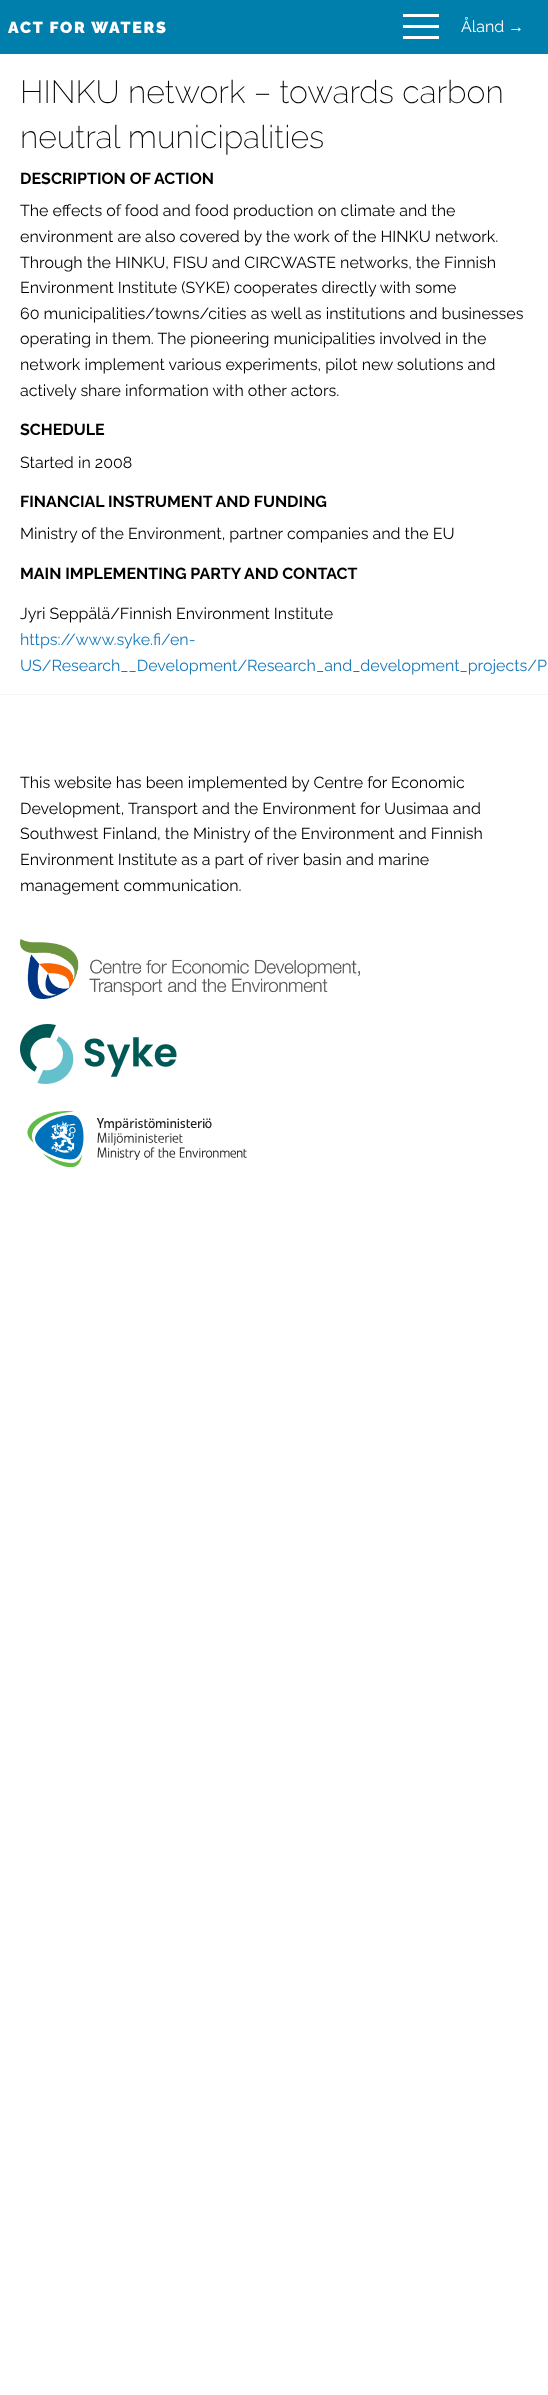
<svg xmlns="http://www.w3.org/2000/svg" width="548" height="2395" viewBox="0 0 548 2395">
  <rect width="100%" height="100%" fill="#ffffff"/>
  <rect x="0" y="0" width="548" height="54" fill="#007fad"/>
  <text x="8" y="33" font-family="Raleway" font-size="16" font-weight="900" letter-spacing="1.75" fill="#ffffff">ACT FOR WATERS</text>
  <rect x="403" y="36" width="36" height="3" fill="#ffffff"/>
  <rect x="403" y="25" width="36" height="3" fill="#ffffff"/>
  <rect x="403" y="14" width="36" height="3" fill="#ffffff"/>
  <text x="461" y="32" font-family="Raleway" font-size="16" fill="#ffffff">Åland</text>
  <text x="508" y="32" font-family="Liberation Sans" font-size="16" fill="#ffffff">→</text>
  <text x="20" y="103" font-family="Raleway" font-size="32" font-weight="200" fill="#000000">HINKU network – towards carbon</text>
  <text x="20" y="148" font-family="Raleway" font-size="32" font-weight="200" fill="#000000">neutral municipalities</text>
  <text x="20" y="184" font-family="Raleway" font-size="16" font-weight="bold" fill="#000000">DESCRIPTION OF ACTION</text>
  <text x="20" y="216" font-family="Raleway" font-size="16" fill="#000000">The effects of food and food production on climate and the</text>
  <text x="20" y="242" font-family="Raleway" font-size="16" fill="#000000">environment are also covered by the work of the HINKU network.</text>
  <text x="20" y="268" font-family="Raleway" font-size="16" fill="#000000">Through the HINKU, FISU and CIRCWASTE networks, the Finnish</text>
  <text x="20" y="293" font-family="Raleway" font-size="16" fill="#000000">Environment Institute (SYKE) cooperates directly with some</text>
  <text x="20" y="319" font-family="Raleway" font-size="16" fill="#000000">60 municipalities/towns/cities as well as institutions and businesses</text>
  <text x="20" y="344" font-family="Raleway" font-size="16" fill="#000000">operating in them. The pioneering municipalities involved in the</text>
  <text x="20" y="370" font-family="Raleway" font-size="16" fill="#000000">network implement various experiments, pilot new solutions and</text>
  <text x="20" y="396" font-family="Raleway" font-size="16" fill="#000000">actively share information with other actors.</text>
  <text x="20" y="435" font-family="Raleway" font-size="16" font-weight="bold" fill="#000000">SCHEDULE</text>
  <text x="20" y="468" font-family="Raleway" font-size="16" fill="#000000">Started in 2008</text>
  <text x="20" y="507" font-family="Raleway" font-size="16" font-weight="bold" fill="#000000">FINANCIAL INSTRUMENT AND FUNDING</text>
  <text x="20" y="539" font-family="Raleway" font-size="16" fill="#000000">Ministry of the Environment, partner companies and the EU</text>
  <text x="20" y="579" font-family="Raleway" font-size="16" font-weight="bold" fill="#000000">MAIN IMPLEMENTING PARTY AND CONTACT</text>
  <text x="20" y="619" font-family="Raleway" font-size="16" fill="#000000">Jyri Seppälä/Finnish Environment Institute</text>
  <text x="20" y="645" font-family="Raleway" font-size="16" fill="#1779ba">https://www.syke.fi/en-</text>
  <text x="20" y="671" font-family="Raleway" font-size="16" fill="#1779ba">US/Research__Development/Research_and_development_projects/P</text>
  <rect x="0" y="694" width="548" height="1" fill="#f6f6f6"/>
  <text x="20" y="788" font-family="Raleway" font-size="16" fill="#000000">This website has been implemented by Centre for Economic</text>
  <text x="20" y="814" font-family="Raleway" font-size="16" fill="#000000">Development, Transport and the Environment for Uusimaa and</text>
  <text x="20" y="839" font-family="Raleway" font-size="16" fill="#000000">Southwest Finland, the Ministry of the Environment and Finnish</text>
  <text x="20" y="865" font-family="Raleway" font-size="16" fill="#000000">Environment Institute as a part of river basin and marine</text>
  <text x="20" y="891" font-family="Raleway" font-size="16" fill="#000000">management communication.</text>
  <image x="20" y="939" width="340" height="60" href="img1.png"/>
  <image x="20" y="1024" width="157" height="60" href="img2.png"/>
  <image x="27" y="1111" width="220" height="56" href="img3.png"/>
</svg>
